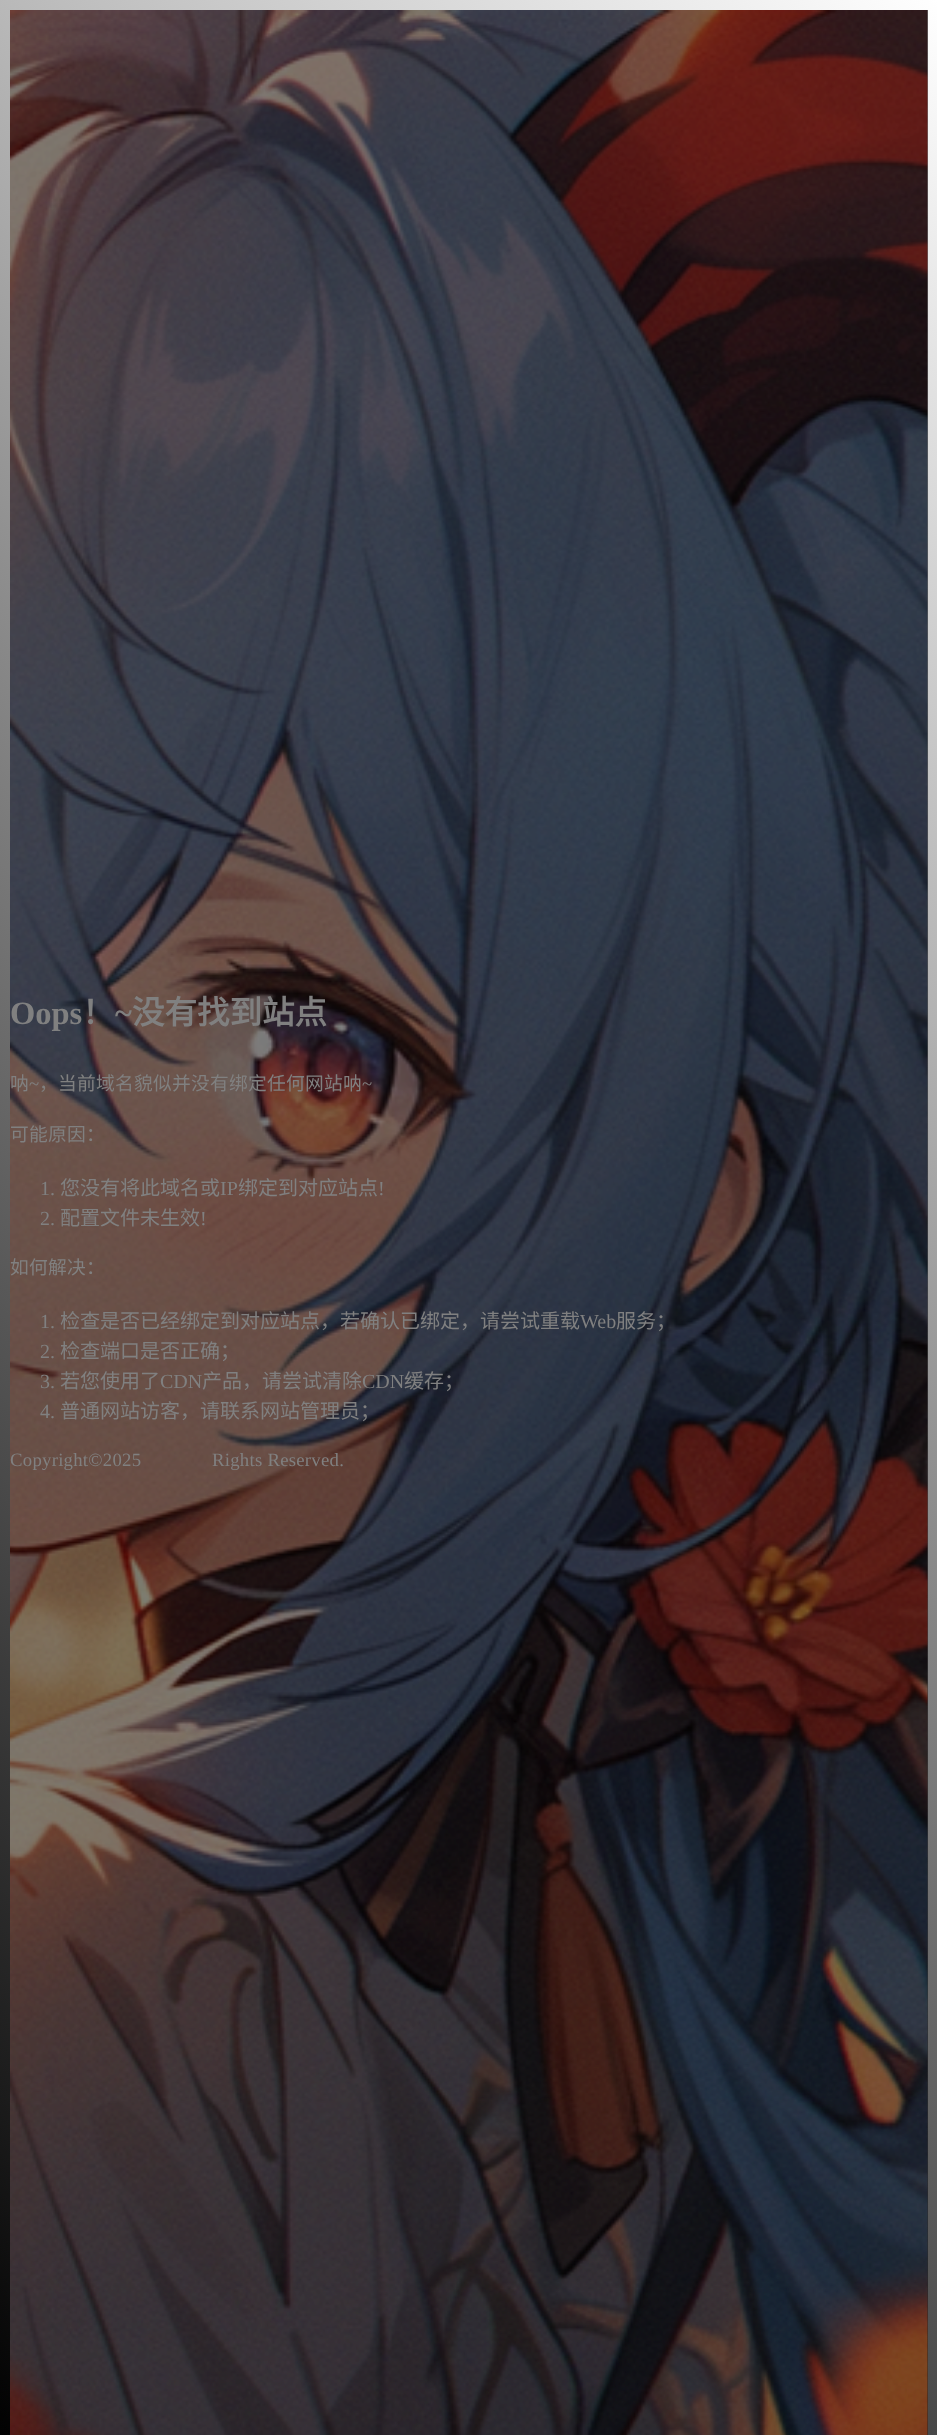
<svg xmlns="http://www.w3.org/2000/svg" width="937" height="2435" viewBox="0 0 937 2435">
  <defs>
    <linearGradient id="g1" gradientUnits="userSpaceOnUse" x1="-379" y1="2076" x2="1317" y2="379"><stop offset="0" stop-color="#000000"/><stop offset="1" stop-color="#ffffff"/></linearGradient>
    <linearGradient id="g2" gradientUnits="userSpaceOnUse" x1="-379" y1="2076" x2="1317" y2="379"><stop offset="0" stop-color="#000000"/><stop offset="1" stop-color="#808080"/></linearGradient>
  </defs>
  <rect width="100%" height="100%" fill="#ffffff"/>
  <rect x="0" y="0" width="937" height="2435" fill="url(#g1)"/>
  <rect x="927" y="10" width="1" height="2425" fill="url(#g2)"/>
  <image x="10" y="10" width="918" height="2425" href="img1.png"/>
  <text x="10" y="1024" font-family="Liberation Serif" font-size="32.5" font-weight="bold" fill="#808080">Oops</text>
  <text x="82" y="1024" font-family="Noto Sans CJK SC" font-size="32.5" font-weight="bold" fill="#808080">！</text>
  <text x="115" y="1024" font-family="Liberation Serif" font-size="32.5" font-weight="bold" fill="#808080">~</text>
  <text x="132" y="1024" font-family="Noto Sans CJK SC" font-size="32.5" font-weight="bold" fill="#808080">没有找到站点</text>
  <text x="10" y="1090" font-family="Noto Sans CJK SC" font-size="18.75" letter-spacing="0.25" fill="#808080">呐</text>
  <text x="29" y="1090" font-family="Liberation Serif" font-size="18.75" letter-spacing="0.25" fill="#808080">~</text>
  <text x="39" y="1090" font-family="Noto Sans CJK SC" font-size="18.75" letter-spacing="0.25" fill="#808080">，当前域名貌似并没有绑定任何网站呐</text>
  <text x="362" y="1090" font-family="Liberation Serif" font-size="18.75" letter-spacing="0.25" fill="#808080">~</text>
  <text x="10" y="1141" font-family="Noto Sans CJK SC" font-size="18.75" letter-spacing="0.25" fill="#808080">可能原因：</text>
  <text x="40" y="1195" font-family="Liberation Serif" font-size="20" fill="#808080">1.</text>
  <text x="60" y="1195" font-family="Noto Sans CJK SC" font-size="20" fill="#808080">您没有将此域名或</text>
  <text x="220" y="1195" font-family="Liberation Serif" font-size="20" fill="#808080">IP</text>
  <text x="238" y="1195" font-family="Noto Sans CJK SC" font-size="20" fill="#808080">绑定到对应站点</text>
  <text x="378" y="1195" font-family="Liberation Serif" font-size="20" fill="#808080">!</text>
  <text x="40" y="1225" font-family="Liberation Serif" font-size="20" fill="#808080">2.</text>
  <text x="60" y="1225" font-family="Noto Sans CJK SC" font-size="20" fill="#808080">配置文件未生效</text>
  <text x="200" y="1225" font-family="Liberation Serif" font-size="20" fill="#808080">!</text>
  <text x="10" y="1274" font-family="Noto Sans CJK SC" font-size="18.75" letter-spacing="0.25" fill="#808080">如何解决：</text>
  <text x="40" y="1328" font-family="Liberation Serif" font-size="20" fill="#808080">1.</text>
  <text x="60" y="1328" font-family="Noto Sans CJK SC" font-size="20" fill="#808080">检查是否已经绑定到对应站点，若确认已绑定，请尝试重载</text>
  <text x="580" y="1328" font-family="Liberation Serif" font-size="20" fill="#808080">Web</text>
  <text x="616" y="1328" font-family="Noto Sans CJK SC" font-size="20" fill="#808080">服务；</text>
  <text x="40" y="1358" font-family="Liberation Serif" font-size="20" fill="#808080">2.</text>
  <text x="60" y="1358" font-family="Noto Sans CJK SC" font-size="20" fill="#808080">检查端口是否正确；</text>
  <text x="40" y="1388" font-family="Liberation Serif" font-size="20" fill="#808080">3.</text>
  <text x="60" y="1388" font-family="Noto Sans CJK SC" font-size="20" fill="#808080">若您使用了</text>
  <text x="160" y="1388" font-family="Liberation Serif" font-size="20" fill="#808080">CDN</text>
  <text x="202" y="1388" font-family="Noto Sans CJK SC" font-size="20" fill="#808080">产品，请尝试清除</text>
  <text x="362" y="1388" font-family="Liberation Serif" font-size="20" fill="#808080">CDN</text>
  <text x="404" y="1388" font-family="Noto Sans CJK SC" font-size="20" fill="#808080">缓存；</text>
  <text x="40" y="1418" font-family="Liberation Serif" font-size="20" fill="#808080">4.</text>
  <text x="60" y="1418" font-family="Noto Sans CJK SC" font-size="20" fill="#808080">普通网站访客，请联系网站管理员；</text>
  <text x="10" y="1466" font-family="Liberation Serif" font-size="18.75" letter-spacing="0.25" fill="#808080">Copyright©2025</text>
  <text x="212" y="1466" font-family="Liberation Serif" font-size="18.75" letter-spacing="0.25" fill="#808080">Rights Reserved.</text>
</svg>
